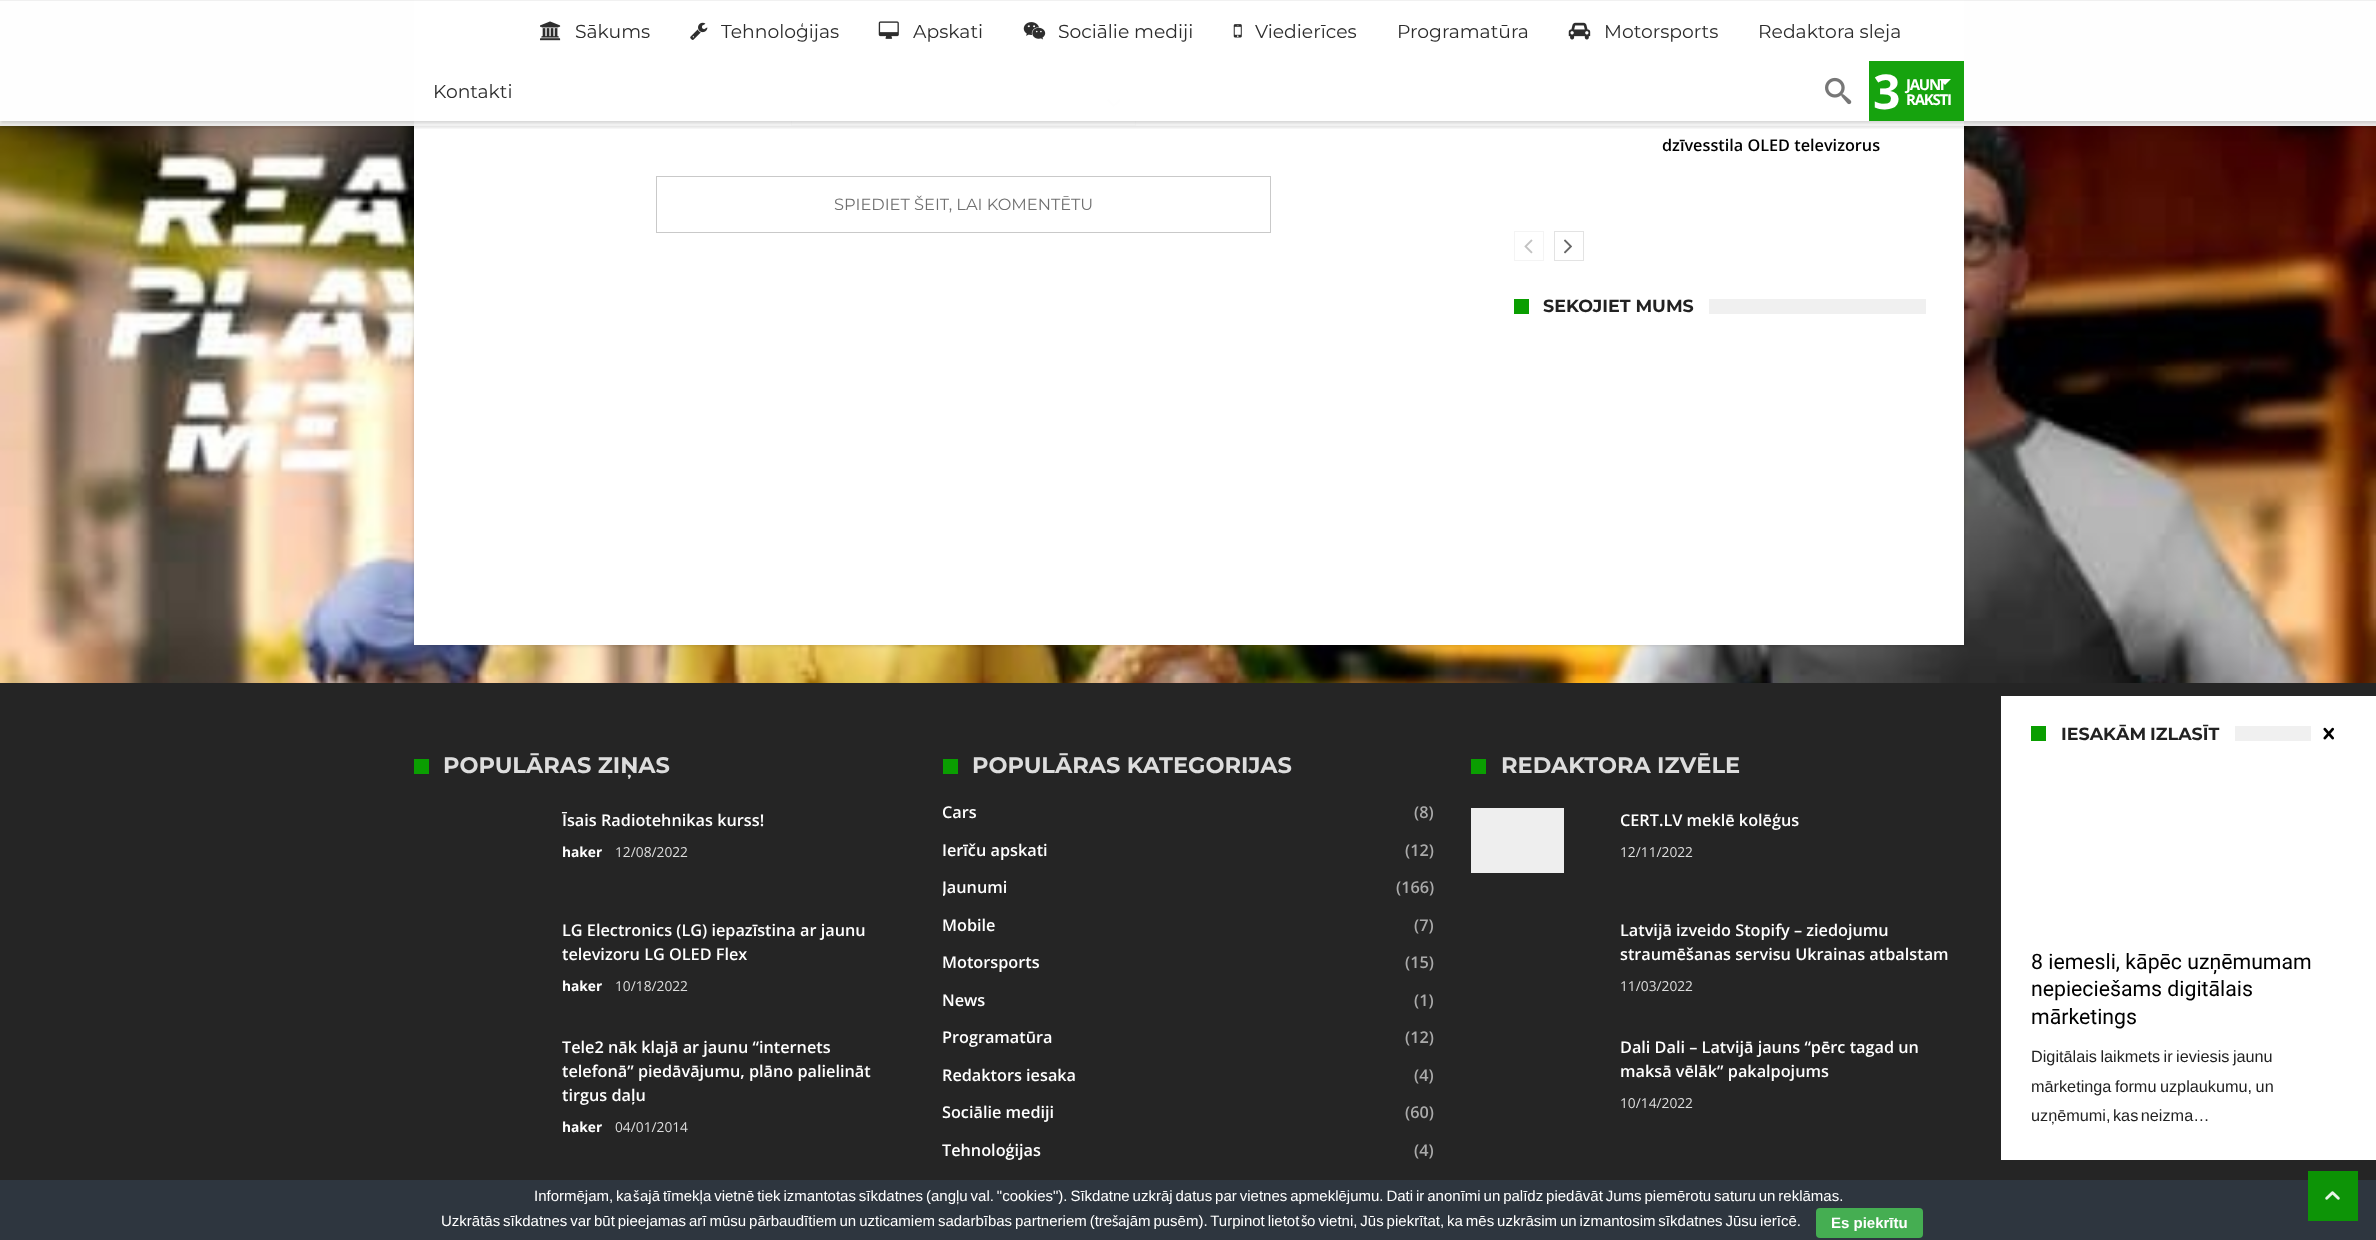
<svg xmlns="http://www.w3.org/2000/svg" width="2376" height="1240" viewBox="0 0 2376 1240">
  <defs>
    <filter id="blur1" x="-50%" y="-200%" width="200%" height="500%"><feGaussianBlur stdDeviation="2"/></filter>
    <clipPath id="clip1"><rect x="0" y="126" width="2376" height="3"/></clipPath>
    <filter id="blur2" x="-50%" y="-200%" width="200%" height="500%"><feGaussianBlur stdDeviation="1"/></filter>
    <clipPath id="clip2"><rect x="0" y="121" width="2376" height="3"/></clipPath>
    <clipPath id="clip3"><rect x="943" y="869" width="491" height="37"/></clipPath>
  </defs>
  <rect width="100%" height="100%" fill="#ffffff"/>
  <image x="0" y="0" width="2376" height="683" href="img1.png"/>
  <rect x="414" y="-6" width="1550" height="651" fill="#000000" fill-opacity="0.2" filter="url(#blur1)"/>
  <rect x="414" y="0" width="1550" height="645" fill="#ffffff"/>
  <rect x="791.5" y="81.5" width="344" height="44" fill="none" stroke="#c9c9c9"/>
  <image x="1107" y="99" width="14" height="8" href="img11.png"/>
  <g clip-path="url(#clip1)">
    <rect x="1" y="1" width="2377" height="127" fill="#000000" fill-opacity="0.1" filter="url(#blur2)"/>
  </g>
  <rect x="0" y="0" width="2376" height="126" fill="#f0f0f0" fill-opacity="0.95"/>
  <rect x="0" y="0" width="2376" height="1" fill="#f0f0f0" fill-opacity="0.95"/>
  <g clip-path="url(#clip2)">
    <rect x="1" y="3" width="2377" height="120" fill="#000000" fill-opacity="0.1" filter="url(#blur2)"/>
  </g>
  <rect x="0" y="1" width="2376" height="120" fill="#ffffff" fill-opacity="0.95"/>
  <image x="540" y="21" width="21" height="20" href="img2.png"/>
  <text x="575" y="38" font-family="Montserrat" font-size="18.75" fill="#2d2d2d">Sākums</text>
  <image x="690" y="22" width="18" height="18" href="img3.png"/>
  <text x="721" y="38" font-family="Montserrat" font-size="18.75" fill="#2d2d2d">Tehnoloģijas</text>
  <image x="878" y="21" width="21" height="18" href="img4.png"/>
  <text x="913" y="38" font-family="Montserrat" font-size="18.75" fill="#2d2d2d">Apskati</text>
  <image x="1023" y="22" width="23" height="18" href="img5.png"/>
  <text x="1058" y="38" font-family="Montserrat" font-size="18.75" fill="#2d2d2d">Sociālie mediji</text>
  <image x="1233" y="24" width="9" height="14" href="img6.png"/>
  <text x="1255" y="38" font-family="Montserrat" font-size="18.75" fill="#2d2d2d">Viedierīces</text>
  <text x="1397" y="38" font-family="Montserrat" font-size="18.75" fill="#2d2d2d">Programatūra</text>
  <image x="1568" y="22" width="23" height="18" href="img7.png"/>
  <text x="1604" y="38" font-family="Montserrat" font-size="18.75" fill="#2d2d2d">Motorsports</text>
  <text x="1758" y="38" font-family="Montserrat" font-size="18.75" fill="#2d2d2d">Redaktora sleja</text>
  <text x="433" y="98" font-family="Montserrat" font-size="18.75" fill="#2d2d2d">Kontakti</text>
  <image x="1825" y="77" width="27" height="28" href="img8.png"/>
  <rect x="1869" y="61" width="95" height="60" fill="#16a30e"/>
  <text x="1873" y="109" font-family="Open Sans" font-size="48" font-weight="bold" letter-spacing="-6" fill="#ffffff">3</text>
  <text x="1906" y="90" font-family="Open Sans" font-size="15" font-weight="bold" letter-spacing="-1.25" fill="#ffffff">JAUNI</text>
  <path d="M1939 79H1951L1945 85Z" fill="#ffffff"/>
  <text x="1906" y="105" font-family="Open Sans" font-size="15" font-weight="bold" letter-spacing="-1.25" fill="#ffffff">RAKSTI</text>
  <text x="1662" y="151" font-family="Open Sans" font-size="16.25" font-weight="600" fill="#000000">dzīvesstila OLED televizorus</text>
  <rect x="1514.5" y="231.5" width="29" height="29" fill="none" stroke="#f4f4f4"/>
  <image x="1524" y="239" width="9" height="15" href="img9.png"/>
  <rect x="1554.5" y="231.5" width="29" height="29" fill="none" stroke="#e3e3e3"/>
  <image x="1564" y="239" width="8" height="15" href="img10.png"/>
  <rect x="1709" y="299" width="217" height="15" fill="#f0f0f0"/>
  <rect x="1514" y="299" width="15" height="15" fill="#0a9e01"/>
  <text x="1543" y="312" font-family="Montserrat" font-size="17.5" font-weight="bold" fill="#222222">SEKOJIET MUMS</text>
  <rect x="656.5" y="176.5" width="614" height="56" fill="none" stroke="#c9c9c9"/>
  <text x="834" y="210" font-family="Montserrat" font-size="16.25" fill="#707070">SPIEDIET ŠEIT, LAI KOMENTĒTU</text>
  <rect x="0" y="683" width="2376" height="497" fill="#252525"/>
  <rect x="2001" y="696" width="375" height="464" fill="#ffffff"/>
  <rect x="2235" y="726" width="76" height="15" fill="#f0f0f0"/>
  <rect x="2031" y="726" width="15" height="15" fill="#0a9e01"/>
  <text x="2061" y="740" word-spacing="-1" font-family="Montserrat" font-size="17.5" font-weight="bold" fill="#222222">IESAKĀM IZLASĪT</text>
  <image x="2323" y="727" width="11" height="13" href="img12.png"/>
  <text x="2031" y="969" font-family="Roboto" font-size="21.25" fill="#000000">8 iemesli, kāpēc uzņēmumam</text>
  <text x="2031" y="996" font-family="Roboto" font-size="21.25" fill="#000000">nepieciešams digitālais</text>
  <text x="2031" y="1024" font-family="Roboto" font-size="21.25" fill="#000000">mārketings</text>
  <text x="2031" y="1062" word-spacing="-1" font-family="Liberation Sans" font-size="16.25" fill="#222222">Digitālais laikmets ir ieviesis jaunu</text>
  <text x="2031" y="1092" word-spacing="-1" font-family="Liberation Sans" font-size="16.25" fill="#222222">mārketinga formu uzplaukumu, un</text>
  <text x="2031" y="1121" word-spacing="-2" font-family="Liberation Sans" font-size="16.25" fill="#222222">uzņēmumi, kas neizma…</text>
  <rect x="414" y="759" width="15" height="15" fill="#0a9e01"/>
  <text x="443" y="773" font-family="Montserrat" font-size="22.5" font-weight="bold" fill="#dddddd">POPULĀRAS ZIŅAS</text>
  <text x="562" y="826" font-family="Open Sans" font-size="16.25" font-weight="600" fill="#ffffff">Īsais Radiotehnikas kurss!</text>
  <text x="562" y="857" font-family="Open Sans" font-size="13.75" font-weight="bold" fill="#ffffff">haker</text>
  <text x="615" y="857" font-family="Open Sans" font-size="13.75" fill="#dddddd">12/08/2022</text>
  <text x="562" y="936" font-family="Open Sans" font-size="16.25" font-weight="600" fill="#ffffff">LG Electronics (LG) iepazīstina ar jaunu</text>
  <text x="562" y="960" font-family="Open Sans" font-size="16.25" font-weight="600" fill="#ffffff">televizoru LG OLED Flex</text>
  <text x="562" y="991" font-family="Open Sans" font-size="13.75" font-weight="bold" fill="#ffffff">haker</text>
  <text x="615" y="991" font-family="Open Sans" font-size="13.75" fill="#dddddd">10/18/2022</text>
  <text x="562" y="1053" font-family="Open Sans" font-size="16.25" font-weight="600" fill="#ffffff">Tele2 nāk klajā ar jaunu “internets</text>
  <text x="562" y="1077" font-family="Open Sans" font-size="16.25" font-weight="600" fill="#ffffff">telefonā” piedāvājumu, plāno palielināt</text>
  <text x="562" y="1101" font-family="Open Sans" font-size="16.25" font-weight="600" fill="#ffffff">tirgus daļu</text>
  <text x="562" y="1132" font-family="Open Sans" font-size="13.75" font-weight="bold" fill="#ffffff">haker</text>
  <text x="615" y="1132" font-family="Open Sans" font-size="13.75" fill="#dddddd">04/01/2014</text>
  <rect x="943" y="759" width="15" height="15" fill="#0a9e01"/>
  <text x="972" y="773" font-family="Montserrat" font-size="22.5" font-weight="bold" fill="#dddddd">POPULĀRAS KATEGORIJAS</text>
  <text x="942" y="818" font-family="Open Sans" font-size="16.25" font-weight="600" fill="#ffffff">Cars</text>
  <text x="1414" y="818" font-family="Open Sans" font-size="16.25" font-weight="600" fill="#aaaaaa">(8)</text>
  <text x="942" y="856" font-family="Open Sans" font-size="16.25" font-weight="600" fill="#ffffff">Ierīču apskati</text>
  <text x="1405" y="856" font-family="Open Sans" font-size="16.25" font-weight="600" fill="#aaaaaa">(12)</text>
  <g clip-path="url(#clip3)">
    <text x="942" y="893" font-family="Open Sans" font-size="16.25" font-weight="600" fill="#ffffff">Jaunumi</text>
  </g>
  <text x="1396" y="893" font-family="Open Sans" font-size="16.25" font-weight="600" fill="#aaaaaa">(166)</text>
  <text x="942" y="931" font-family="Open Sans" font-size="16.25" font-weight="600" fill="#ffffff">Mobile</text>
  <text x="1414" y="931" font-family="Open Sans" font-size="16.25" font-weight="600" fill="#aaaaaa">(7)</text>
  <text x="942" y="968" font-family="Open Sans" font-size="16.25" font-weight="600" fill="#ffffff">Motorsports</text>
  <text x="1405" y="968" font-family="Open Sans" font-size="16.25" font-weight="600" fill="#aaaaaa">(15)</text>
  <text x="942" y="1006" font-family="Open Sans" font-size="16.25" font-weight="600" fill="#ffffff">News</text>
  <text x="1414" y="1006" font-family="Open Sans" font-size="16.25" font-weight="600" fill="#aaaaaa">(1)</text>
  <text x="942" y="1043" font-family="Open Sans" font-size="16.25" font-weight="600" fill="#ffffff">Programatūra</text>
  <text x="1405" y="1043" font-family="Open Sans" font-size="16.25" font-weight="600" fill="#aaaaaa">(12)</text>
  <text x="942" y="1081" font-family="Open Sans" font-size="16.25" font-weight="600" fill="#ffffff">Redaktors iesaka</text>
  <text x="1414" y="1081" font-family="Open Sans" font-size="16.25" font-weight="600" fill="#aaaaaa">(4)</text>
  <text x="942" y="1118" font-family="Open Sans" font-size="16.25" font-weight="600" fill="#ffffff">Sociālie mediji</text>
  <text x="1405" y="1118" font-family="Open Sans" font-size="16.25" font-weight="600" fill="#aaaaaa">(60)</text>
  <text x="942" y="1156" font-family="Open Sans" font-size="16.25" font-weight="600" fill="#ffffff">Tehnoloģijas</text>
  <text x="1414" y="1156" font-family="Open Sans" font-size="16.25" font-weight="600" fill="#aaaaaa">(4)</text>
  <rect x="1471" y="759" width="15" height="15" fill="#0a9e01"/>
  <text x="1501" y="773" font-family="Montserrat" font-size="22.5" font-weight="bold" fill="#dddddd">REDAKTORA IZVĒLE</text>
  <rect x="1471" y="808" width="93" height="65" fill="#eeeeee"/>
  <text x="1620" y="826" font-family="Open Sans" font-size="16.25" font-weight="600" fill="#ffffff">CERT.LV meklē kolēģus</text>
  <text x="1620" y="857" font-family="Open Sans" font-size="13.75" fill="#dddddd">12/11/2022</text>
  <text x="1620" y="936" font-family="Open Sans" font-size="16.25" font-weight="600" fill="#ffffff">Latvijā izveido Stopify – ziedojumu</text>
  <text x="1620" y="960" font-family="Open Sans" font-size="16.25" font-weight="600" fill="#ffffff">straumēšanas servisu Ukrainas atbalstam</text>
  <text x="1620" y="991" font-family="Open Sans" font-size="13.75" fill="#dddddd">11/03/2022</text>
  <text x="1620" y="1053" font-family="Open Sans" font-size="16.25" font-weight="600" fill="#ffffff">Dali Dali – Latvijā jauns “pērc tagad un</text>
  <text x="1620" y="1077" font-family="Open Sans" font-size="16.25" font-weight="600" fill="#ffffff">maksā vēlāk” pakalpojums</text>
  <text x="1620" y="1108" font-family="Open Sans" font-size="13.75" fill="#dddddd">10/14/2022</text>
  <rect x="0" y="1180" width="2376" height="60" fill="#2e363f"/>
  <text x="534" y="1201" word-spacing="-1.25" font-family="Liberation Sans" font-size="15" fill="#ffffff">Informējam, ka</text>
  <text x="633" y="1201" font-family="Lato" font-size="15" fill="#ffffff">š</text>
  <text x="640" y="1201" word-spacing="-1.25" font-family="Liberation Sans" font-size="15" fill="#ffffff">ajā tīmekļa vietnē tiek izmantotas sīkdatnes (angļu val. "cookies"). Sīkdatne uzkrāj datus par vietnes apmeklējumu. Dati ir anonīmi un palīdz piedāvāt Jums piemērotu saturu un reklāmas.</text>
  <text x="441" y="1226" word-spacing="-1.25" font-family="Liberation Sans" font-size="15" fill="#ffffff">Uzkrātās sīkdatnes var būt pieejamas arī mūsu pārbaudītiem un uzticamiem sadarbības partneriem (tre</text>
  <text x="1112" y="1226" font-family="Lato" font-size="15" fill="#ffffff">š</text>
  <text x="1118" y="1226" word-spacing="-1.25" font-family="Liberation Sans" font-size="15" fill="#ffffff">ajām pusēm). Turpinot lietot</text>
  <text x="1301" y="1226" font-family="Lato" font-size="15" fill="#ffffff">š</text>
  <text x="1307" y="1226" word-spacing="-1.25" font-family="Liberation Sans" font-size="15" fill="#ffffff">o vietni, Jūs piekrītat, ka mēs uzkrāsim un izmantosim sīkdatnes Jūsu ierīcē.</text>
  <rect x="1816" y="1208" width="107" height="30" rx="4" fill="#45ae52"/>
  <text x="1831" y="1228" font-family="Liberation Sans" font-size="15" font-weight="bold" fill="#ffffff">Es piekrītu</text>
  <rect x="2308" y="1171" width="50" height="50" fill="#0a9e01" fill-opacity="0.9"/>
  <image x="2325" y="1191" width="15" height="9" href="img13.png"/>
</svg>
